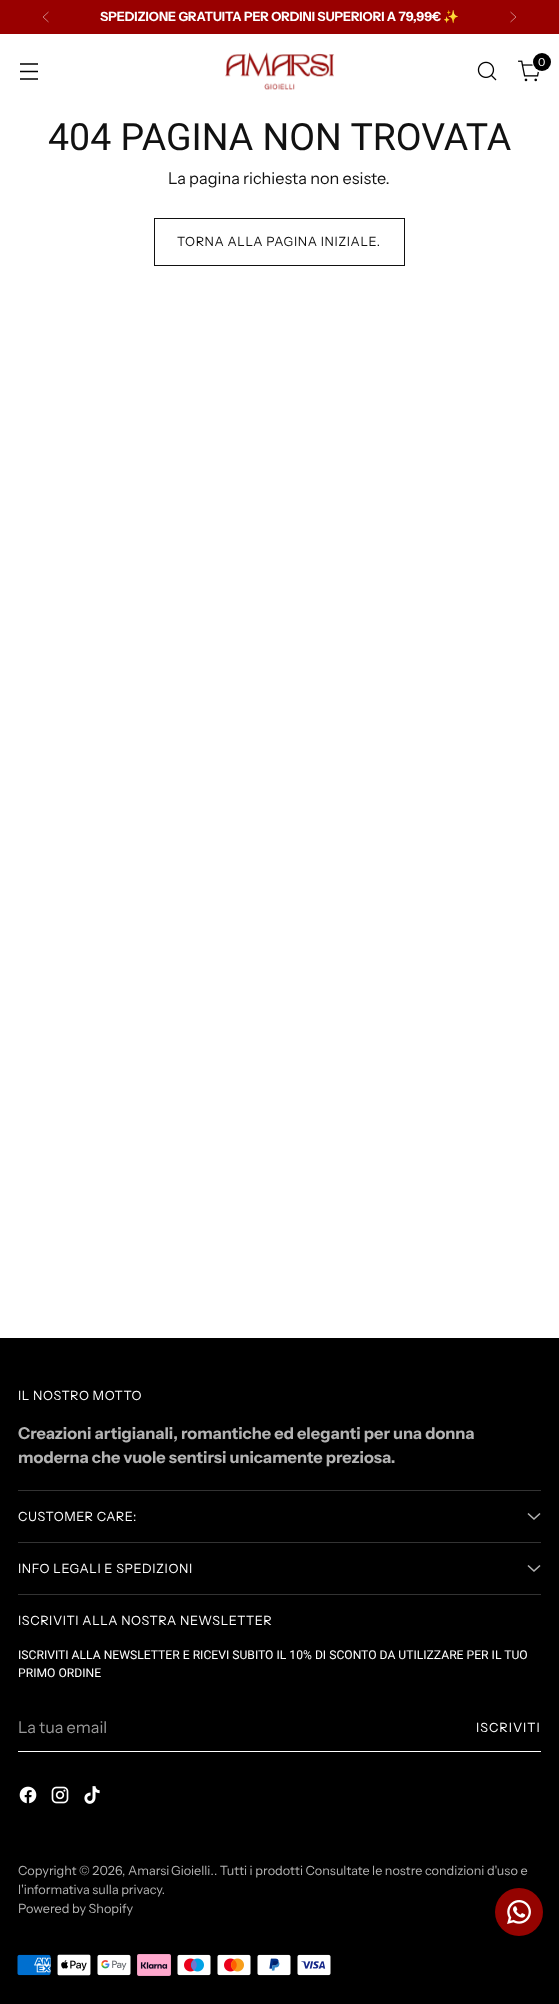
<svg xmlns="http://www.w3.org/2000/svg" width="559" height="2004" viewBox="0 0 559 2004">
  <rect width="100%" height="100%" fill="#ffffff"/>
  <rect x="0" y="0" width="559" height="34" fill="#990000"/>
  <text x="100" y="21" font-family="Instrument Sans" font-size="12.7" font-weight="bold" fill="#ffffff">SPEDIZIONE GRATUITA PER ORDINI SUPERIORI A 79,99€</text>
  <text x="443" y="21" font-family="Noto Color Emoji" font-size="12.7" font-weight="bold" fill="#ffffff">✨</text>
  <path d="M48.5 12L43 17L48.5 22" fill="none" stroke="#cc8080"/>
  <path d="M510.5 22L516 17L510.5 12" fill="none" stroke="#cc8080"/>
  <path d="M20 71.5H38M20 64H38M20 79H38" fill="none" stroke="#000000" stroke-width="1.3"/>
  <image x="225" y="52" width="109" height="38" href="img1.png"/>
  <image x="477" y="61" width="20" height="20" href="img2.png"/>
  <image x="518" y="60" width="22" height="22" href="img3.png"/>
  <circle cx="542.5" cy="62.5" r="9.5" fill="none" stroke="#ffffff" stroke-width="2"/>
  <circle cx="542" cy="62" r="9" fill="#000000"/>
  <text x="538" y="66" font-family="Instrument Sans" font-size="11" fill="#ffffff">0</text>
  <text x="48" y="150" font-family="Roboto" font-size="37.5" fill="#111111">404 PAGINA NON TROVATA</text>
  <text x="168" y="184" font-family="Instrument Sans" font-size="16.3" fill="#111111">La pagina richiesta non esiste.</text>
  <rect x="154.5" y="218.5" width="250" height="47" fill="none" stroke="#111111"/>
  <text x="177" y="246" font-family="Instrument Sans" font-size="12.7" letter-spacing="0.6" fill="#111111">TORNA ALLA PAGINA INIZIALE.</text>
  <rect x="0" y="1338" width="559" height="666" fill="#000000"/>
  <rect x="18" y="1490" width="523" height="1" fill="#333333"/>
  <text x="18" y="1400" font-family="Instrument Sans" font-size="12.7" letter-spacing="0.6" fill="#ffffff">IL NOSTRO MOTTO</text>
  <text x="18" y="1439" font-family="Instrument Sans" font-size="16.3" font-weight="bold" fill="#b3b3b3">Creazioni artigianali, romantiche ed eleganti per una donna</text>
  <text x="18" y="1463" font-family="Instrument Sans" font-size="16.3" font-weight="bold" fill="#b3b3b3">moderna che vuole sentirsi unicamente preziosa.</text>
  <rect x="18" y="1542" width="523" height="1" fill="#333333"/>
  <text x="18" y="1521" font-family="Instrument Sans" font-size="12.7" letter-spacing="0.6" fill="#ffffff">CUSTOMER CARE:</text>
  <path d="M528 1513.5L534 1519L540 1513.5M528 1565.5L534 1571L540 1565.5" fill="none" stroke="#b3b3b3" stroke-width="1.6"/>
  <rect x="18" y="1594" width="523" height="1" fill="#333333"/>
  <text x="18" y="1573" font-family="Instrument Sans" font-size="12.7" letter-spacing="0.6" fill="#ffffff">INFO LEGALI E SPEDIZIONI</text>
  <text x="18" y="1625" font-family="Instrument Sans" font-size="12.7" letter-spacing="0.6" fill="#ffffff">ISCRIVITI ALLA NOSTRA NEWSLETTER</text>
  <text x="18" y="1659" font-family="Roboto" font-size="12.15" fill="#ffffff">ISCRIVITI ALLA NEWSLETTER E RICEVI SUBITO IL 10% DI SCONTO DA UTILIZZARE PER IL TUO</text>
  <text x="18" y="1677" font-family="Roboto" font-size="12.15" fill="#ffffff">PRIMO ORDINE</text>
  <rect x="18" y="1751" width="523" height="1" fill="#ffffff"/>
  <text x="18" y="1733" font-family="Instrument Sans" font-size="16.3" fill="#999999">La tua email</text>
  <text x="476" y="1732" font-family="Instrument Sans" font-size="12.7" letter-spacing="1" fill="#ffffff">ISCRIVITI</text>
  <image x="19" y="1786" width="18" height="18" href="img4.png"/>
  <image x="51" y="1786" width="18" height="18" href="img5.png"/>
  <image x="84" y="1786" width="16" height="18" href="img6.png"/>
  <text x="18" y="1875" font-family="Instrument Sans" font-size="12.7" fill="#b3b3b3">Copyright © 2026,</text>
  <text x="128" y="1875" word-spacing="-1" font-family="Instrument Sans" font-size="12.7" fill="#b3b3b3">Amarsi Gioielli.</text>
  <text x="214" y="1875" font-family="Instrument Sans" font-size="12.7" fill="#b3b3b3">. Tutti i prodotti Consultate le nostre condizioni d'uso e</text>
  <text x="18" y="1894" font-family="Instrument Sans" font-size="12.7" fill="#b3b3b3">l'informativa sulla privacy.</text>
  <text x="18" y="1913" font-family="Instrument Sans" font-size="12.7" fill="#b3b3b3">Powered by Shopify</text>
  <image x="17" y="1954" width="34" height="22" href="img7.png"/>
  <image x="57" y="1954" width="34" height="22" href="img8.png"/>
  <image x="97" y="1954" width="34" height="22" href="img9.png"/>
  <image x="137" y="1954" width="34" height="22" href="img10.png"/>
  <image x="177" y="1954" width="34" height="22" href="img11.png"/>
  <image x="217" y="1954" width="34" height="22" href="img12.png"/>
  <image x="257" y="1954" width="34" height="22" href="img13.png"/>
  <image x="297" y="1954" width="34" height="22" href="img14.png"/>
  <circle cx="519" cy="1912" r="24" fill="#940300"/>
  <image x="507" y="1900" width="24" height="24" href="img15.png"/>
</svg>
